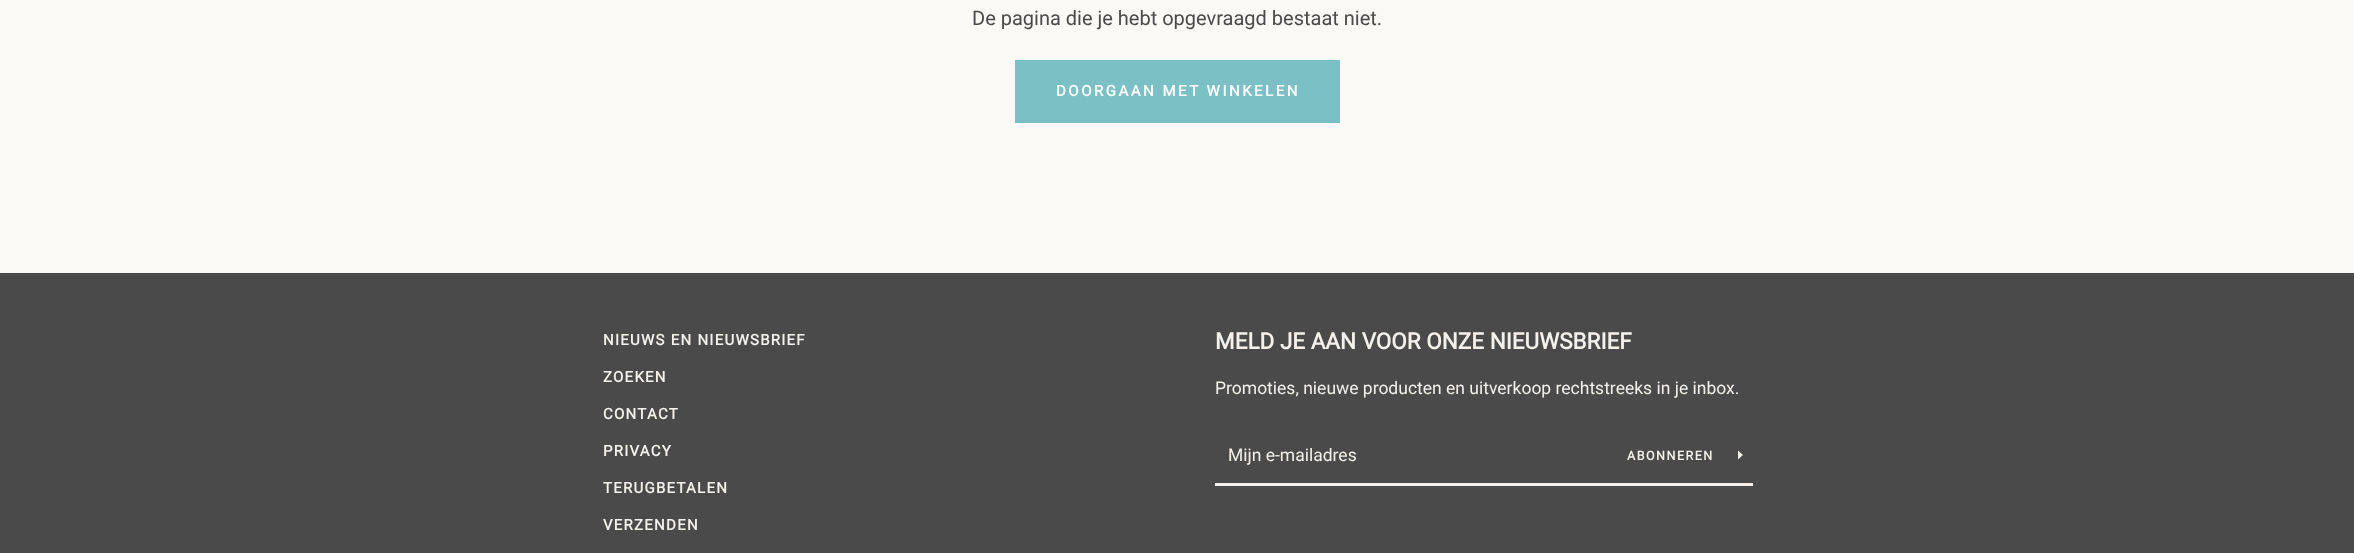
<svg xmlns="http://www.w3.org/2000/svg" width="2354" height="553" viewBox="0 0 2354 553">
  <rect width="100%" height="100%" fill="#faf9f6"/>
  <text x="972" y="25" font-family="Roboto" font-size="20" fill="#4a4a4a">De pagina die je hebt opgevraagd bestaat niet.</text>
  <rect x="1015" y="60" width="325" height="63" fill="#7bc0c5"/>
  <text x="1056" y="96" font-family="Roboto" font-size="15" font-weight="bold" letter-spacing="2.5" fill="#ffffff">DOORGAAN MET WINKELEN</text>
  <rect x="0" y="273" width="2354" height="280" fill="#4a4a4a"/>
  <text x="603" y="345" font-family="Roboto" font-size="15" font-weight="bold" letter-spacing="1.25" fill="#f4f1ec">NIEUWS EN NIEUWSBRIEF</text>
  <text x="603" y="382" font-family="Roboto" font-size="15" font-weight="bold" letter-spacing="1.25" fill="#f4f1ec">ZOEKEN</text>
  <text x="603" y="419" font-family="Roboto" font-size="15" font-weight="bold" letter-spacing="1.25" fill="#f4f1ec">CONTACT</text>
  <text x="603" y="456" font-family="Roboto" font-size="15" font-weight="bold" letter-spacing="1.25" fill="#f4f1ec">PRIVACY</text>
  <text x="603" y="493" font-family="Roboto" font-size="15" font-weight="bold" letter-spacing="1.25" fill="#f4f1ec">TERUGBETALEN</text>
  <text x="603" y="530" font-family="Roboto" font-size="15" font-weight="bold" letter-spacing="1.25" fill="#f4f1ec">VERZENDEN</text>
  <text x="1215" y="349" font-family="Roboto" font-size="22.5" font-weight="bold" fill="#f4f1ec">MELD JE AAN VOOR ONZE NIEUWSBRIEF</text>
  <text x="1215" y="394" font-family="Roboto" font-size="17.5" fill="#f4f1ec">Promoties, nieuwe producten en uitverkoop rechtstreeks in je inbox.</text>
  <rect x="1215" y="483" width="538" height="3" fill="#f4f1ec"/>
  <text x="1228" y="461" font-family="Roboto" font-size="17.5" fill="#f4f1ec">Mijn e-mailadres</text>
  <text x="1627" y="460" font-family="Roboto" font-size="12.5" font-weight="bold" letter-spacing="1.5" fill="#f4f1ec">ABONNEREN</text>
  <path d="M1743 455L1738 459.5V450.5Z" fill="#f4f1ec"/>
</svg>
